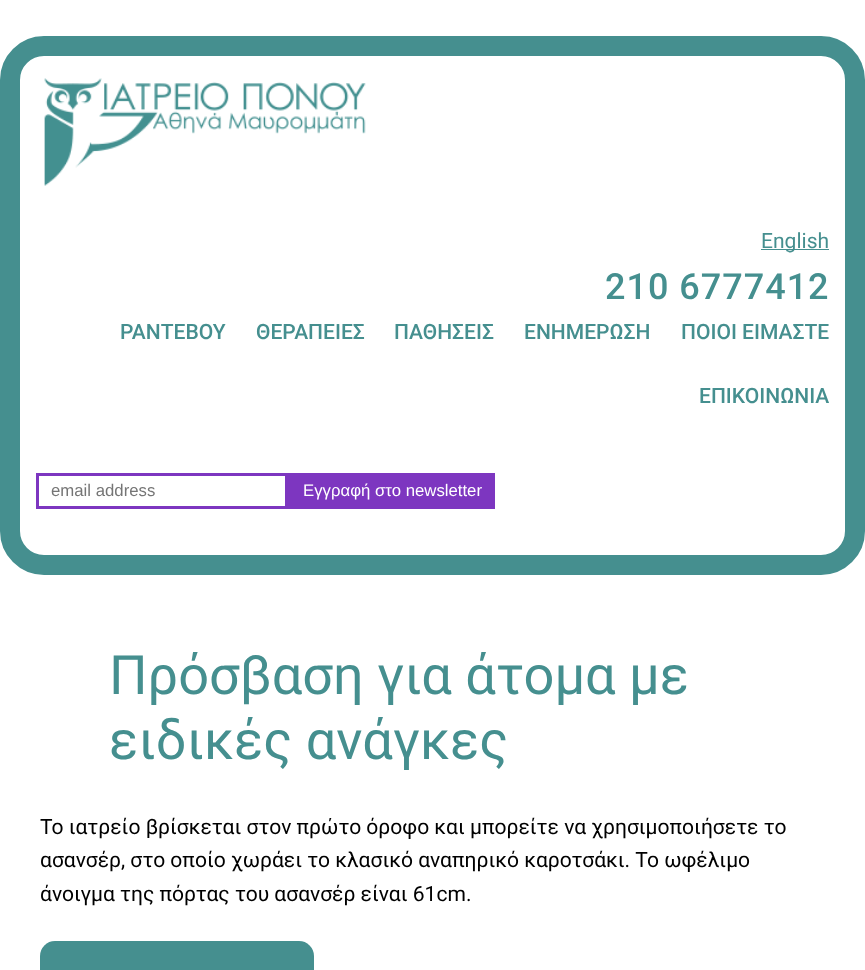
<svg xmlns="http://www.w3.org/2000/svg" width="865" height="970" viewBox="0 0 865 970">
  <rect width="100%" height="100%" fill="#ffffff"/>
  <rect x="10" y="46" width="845" height="519" rx="34" fill="none" stroke="#458f8f" stroke-width="20"/>
  <image x="44" y="78" width="322" height="108" href="img1.png"/>
  <rect x="761" y="249" width="68" height="1" fill="#458f8f"/>
  <text x="761" y="248" font-family="Roboto" font-size="21.05" fill="#458f8f">English</text>
  <text x="605" y="299" font-family="Roboto" font-size="36" font-weight="500" letter-spacing="1" fill="#458f8f">210 6777412</text>
  <text x="120" y="339" font-family="Roboto" font-size="21.05" font-weight="500" fill="#458f8f">ΡΑΝΤΕΒΟΥ</text>
  <text x="256" y="339" font-family="Roboto" font-size="21.05" font-weight="500" fill="#458f8f">ΘΕΡΑΠΕΙΕΣ</text>
  <text x="394" y="339" font-family="Roboto" font-size="21.05" font-weight="500" fill="#458f8f">ΠΑΘΗΣΕΙΣ</text>
  <text x="524" y="339" font-family="Roboto" font-size="21.05" font-weight="500" fill="#458f8f">ΕΝΗΜΕΡΩΣΗ</text>
  <text x="681" y="339" font-family="Roboto" font-size="21.05" font-weight="500" fill="#458f8f">ΠΟΙΟΙ ΕΙΜΑΣΤΕ</text>
  <text x="699" y="403" font-family="Roboto" font-size="21.05" font-weight="500" fill="#458f8f">ΕΠΙΚΟΙΝΩΝΙΑ</text>
  <rect x="37.5" y="474.5" width="249" height="33" fill="none" stroke="#7d36c0" stroke-width="3"/>
  <text x="51" y="496" font-family="Liberation Sans" font-size="16.75" fill="#757575">email address</text>
  <rect x="288" y="473" width="207" height="36" fill="#7d36c0"/>
  <text x="303" y="496" font-family="Liberation Sans" font-size="16.75" fill="#ffffff">Εγγραφή στο newsletter</text>
  <text x="109" y="694" font-family="Roboto" font-size="54.1" fill="#458f8f">Πρόσβαση για άτομα με</text>
  <text x="109" y="759" font-family="Roboto" font-size="54.1" fill="#458f8f">ειδικές ανάγκες</text>
  <text x="40" y="834" font-family="Roboto" font-size="21.05" fill="#000000">Το ιατρείο βρίσκεται στον πρώτο όροφο και μπορείτε να χρησιμοποιήσετε το</text>
  <text x="40" y="867" font-family="Roboto" font-size="21.05" fill="#000000">ασανσέρ, στο οποίο χωράει το κλασικό αναπηρικό καροτσάκι. Το ωφέλιμο</text>
  <text x="40" y="901" font-family="Roboto" font-size="21.05" fill="#000000">άνοιγμα της πόρτας του ασανσέρ είναι 61cm.</text>
  <rect x="40" y="941" width="274" height="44" rx="15" fill="#458f8f"/>
</svg>
